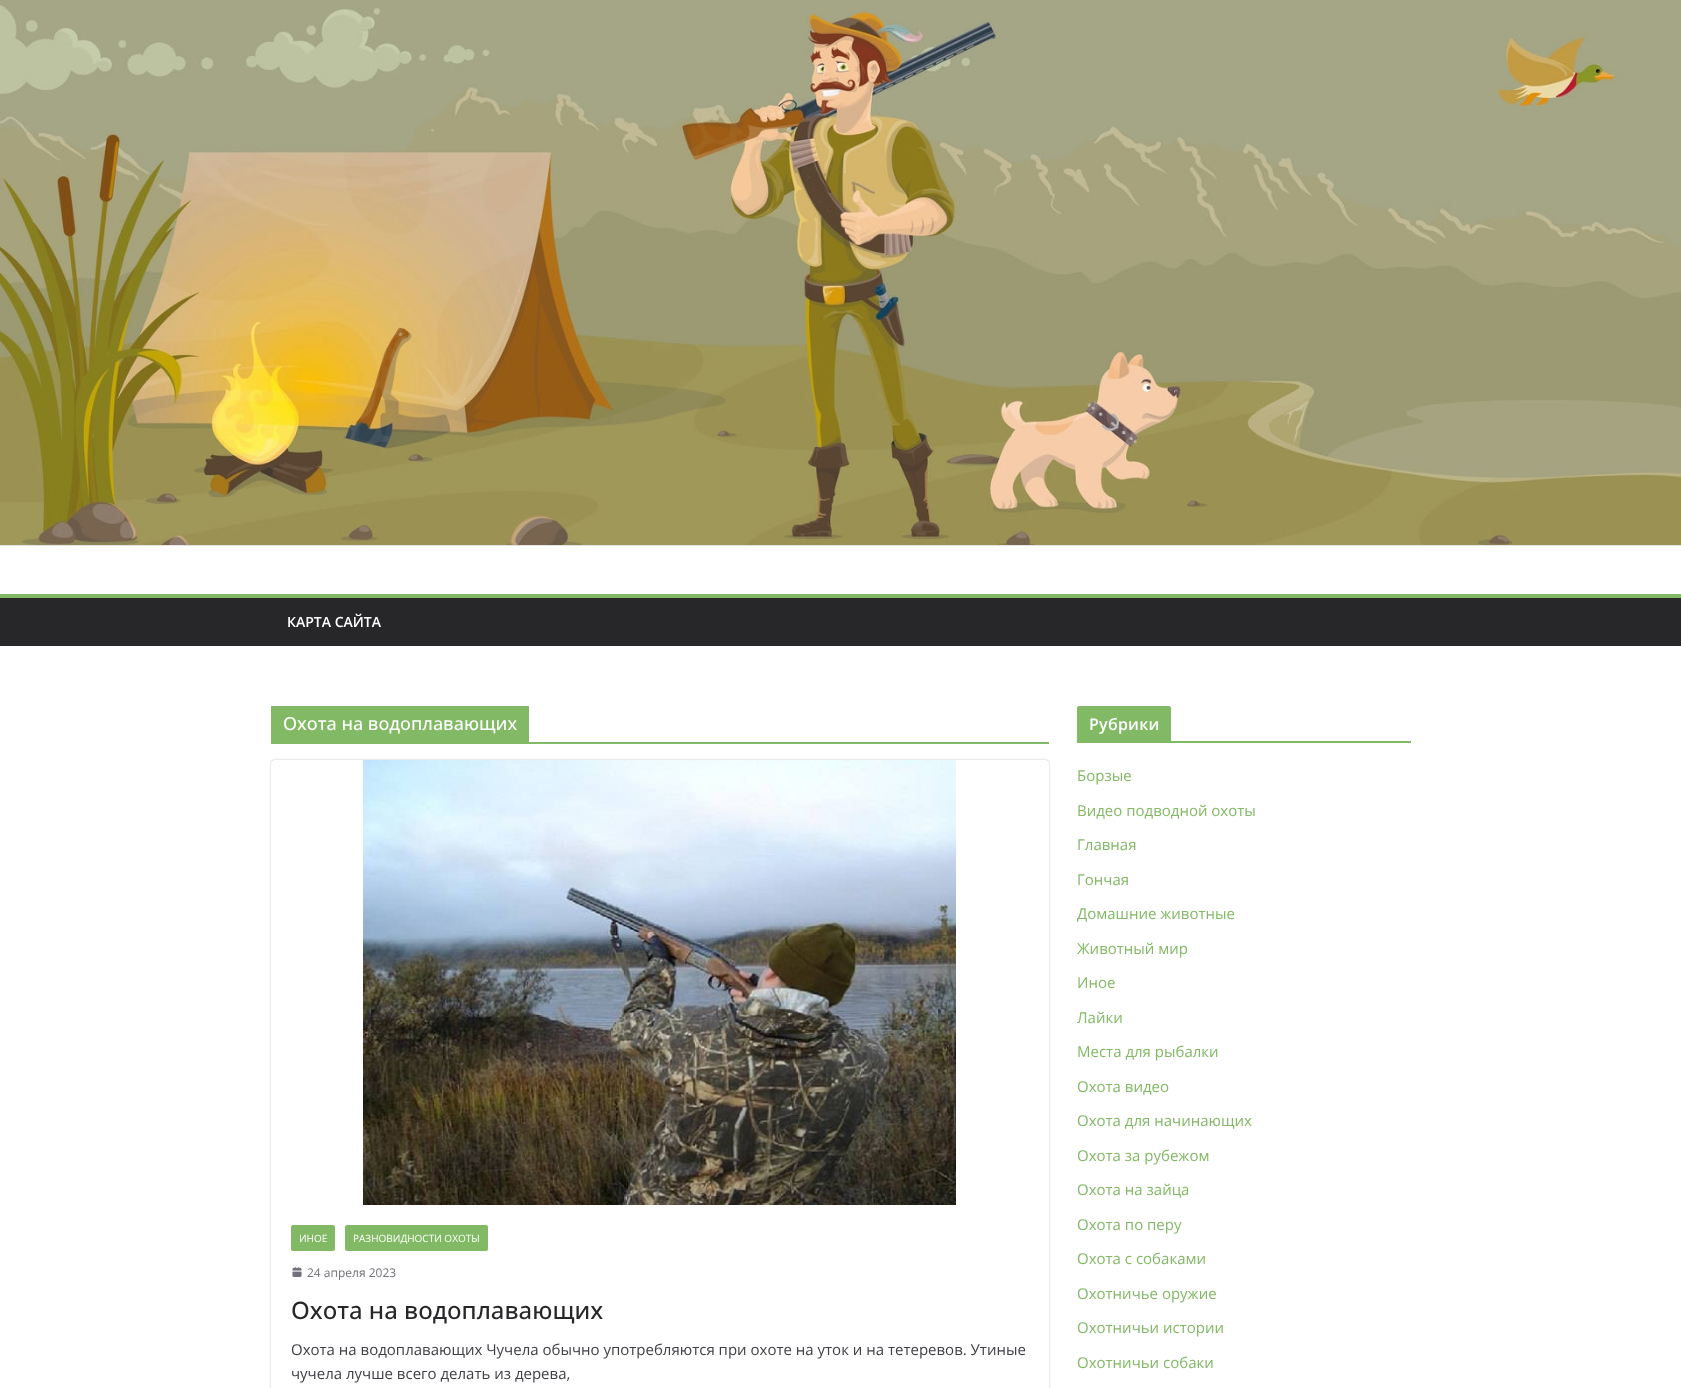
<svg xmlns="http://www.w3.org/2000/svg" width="1681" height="1388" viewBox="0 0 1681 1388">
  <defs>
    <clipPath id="clip1"><path d="M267 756H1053V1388H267ZM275 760H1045C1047 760 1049 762 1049 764V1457C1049 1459 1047 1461 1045 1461H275C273 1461 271 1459 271 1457V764C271 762 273 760 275 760Z" clip-rule="evenodd"/></clipPath>
    <filter id="blur1" x="-50%" y="-200%" width="200%" height="500%"><feGaussianBlur stdDeviation="1"/></filter>
  </defs>
  <rect width="100%" height="100%" fill="#ffffff"/>
  <image x="0" y="0" width="1681" height="545" href="img1.png"/>
  <rect x="0" y="545" width="1681" height="1" fill="#e4e4e7"/>
  <rect x="0" y="598" width="1681" height="48" fill="#27272a"/>
  <rect x="0" y="594" width="1681" height="4" fill="#82b965"/>
  <text x="287" y="627" font-family="Open Sans" font-size="14" font-weight="600" fill="#ffffff">КАРТА САЙТА</text>
  <rect x="271" y="742" width="778" height="2" fill="#82b965"/>
  <rect x="271" y="706" width="258" height="36" fill="#82b965"/>
  <text x="283" y="730" font-family="Open Sans" font-size="18" font-weight="500" fill="#ffffff">Охота на водоплавающих</text>
  <g clip-path="url(#clip1)">
    <rect x="271" y="760" width="778" height="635" rx="4" fill="#000000" fill-opacity="0.24" filter="url(#blur1)"/>
  </g>
  <image x="363" y="760" width="593" height="445" href="img2.png"/>
  <rect x="291" y="1225" width="44" height="26" rx="2" fill="#82b965"/>
  <text x="299" y="1242" font-family="Open Sans" font-size="10" fill="#ffffff">ИНОЕ</text>
  <rect x="345" y="1225" width="143" height="26" rx="2" fill="#82b965"/>
  <text x="353" y="1242" font-family="Open Sans" font-size="10" fill="#ffffff">РАЗНОВИДНОСТИ ОХОТЫ</text>
  <image x="292" y="1267" width="10" height="10" href="img3.png"/>
  <text x="307" y="1277" font-family="Open Sans" font-size="12" fill="#71717a">24 апреля 2023</text>
  <text x="291" y="1319" font-family="Open Sans" font-size="24" font-weight="500" fill="#27272a">Охота на водоплавающих</text>
  <text x="291" y="1355" font-family="Open Sans" font-size="15" fill="#3f3f46">Охота на водоплавающих Чучела обычно употребляются при охоте на уток и на тетеревов. Утиные</text>
  <text x="291" y="1379" font-family="Open Sans" font-size="15" fill="#3f3f46">чучела лучше всего делать из дерева,</text>
  <rect x="1077" y="741" width="334" height="2" fill="#82b965"/>
  <path d="M1079 706H1169C1170 706 1171 707 1171 708V741H1077V708C1077 707 1078 706 1079 706Z" fill="#82b965"/>
  <text x="1089" y="730" font-family="Open Sans" font-size="16" font-weight="600" letter-spacing="0.25" fill="#ffffff">Рубрики</text>
  <text x="1077" y="781" font-family="Open Sans" font-size="15" fill="#82b965">Борзые</text>
  <text x="1077" y="816" font-family="Open Sans" font-size="15" fill="#82b965">Видео подводной охоты</text>
  <text x="1077" y="850" font-family="Open Sans" font-size="15" fill="#82b965">Главная</text>
  <text x="1077" y="885" font-family="Open Sans" font-size="15" fill="#82b965">Гончая</text>
  <text x="1077" y="919" font-family="Open Sans" font-size="15" fill="#82b965">Домашние животные</text>
  <text x="1077" y="954" font-family="Open Sans" font-size="15" fill="#82b965">Животный мир</text>
  <text x="1077" y="988" font-family="Open Sans" font-size="15" fill="#82b965">Иное</text>
  <text x="1077" y="1023" font-family="Open Sans" font-size="15" fill="#82b965">Лайки</text>
  <text x="1077" y="1057" font-family="Open Sans" font-size="15" fill="#82b965">Места для рыбалки</text>
  <text x="1077" y="1092" font-family="Open Sans" font-size="15" fill="#82b965">Охота видео</text>
  <text x="1077" y="1126" font-family="Open Sans" font-size="15" fill="#82b965">Охота для начинающих</text>
  <text x="1077" y="1161" font-family="Open Sans" font-size="15" fill="#82b965">Охота за рубежом</text>
  <text x="1077" y="1195" font-family="Open Sans" font-size="15" fill="#82b965">Охота на зайца</text>
  <text x="1077" y="1230" font-family="Open Sans" font-size="15" fill="#82b965">Охота по перу</text>
  <text x="1077" y="1264" font-family="Open Sans" font-size="15" fill="#82b965">Охота с собаками</text>
  <text x="1077" y="1299" font-family="Open Sans" font-size="15" fill="#82b965">Охотничье оружие</text>
  <text x="1077" y="1333" font-family="Open Sans" font-size="15" fill="#82b965">Охотничьи истории</text>
  <text x="1077" y="1368" font-family="Open Sans" font-size="15" fill="#82b965">Охотничьи собаки</text>
</svg>
